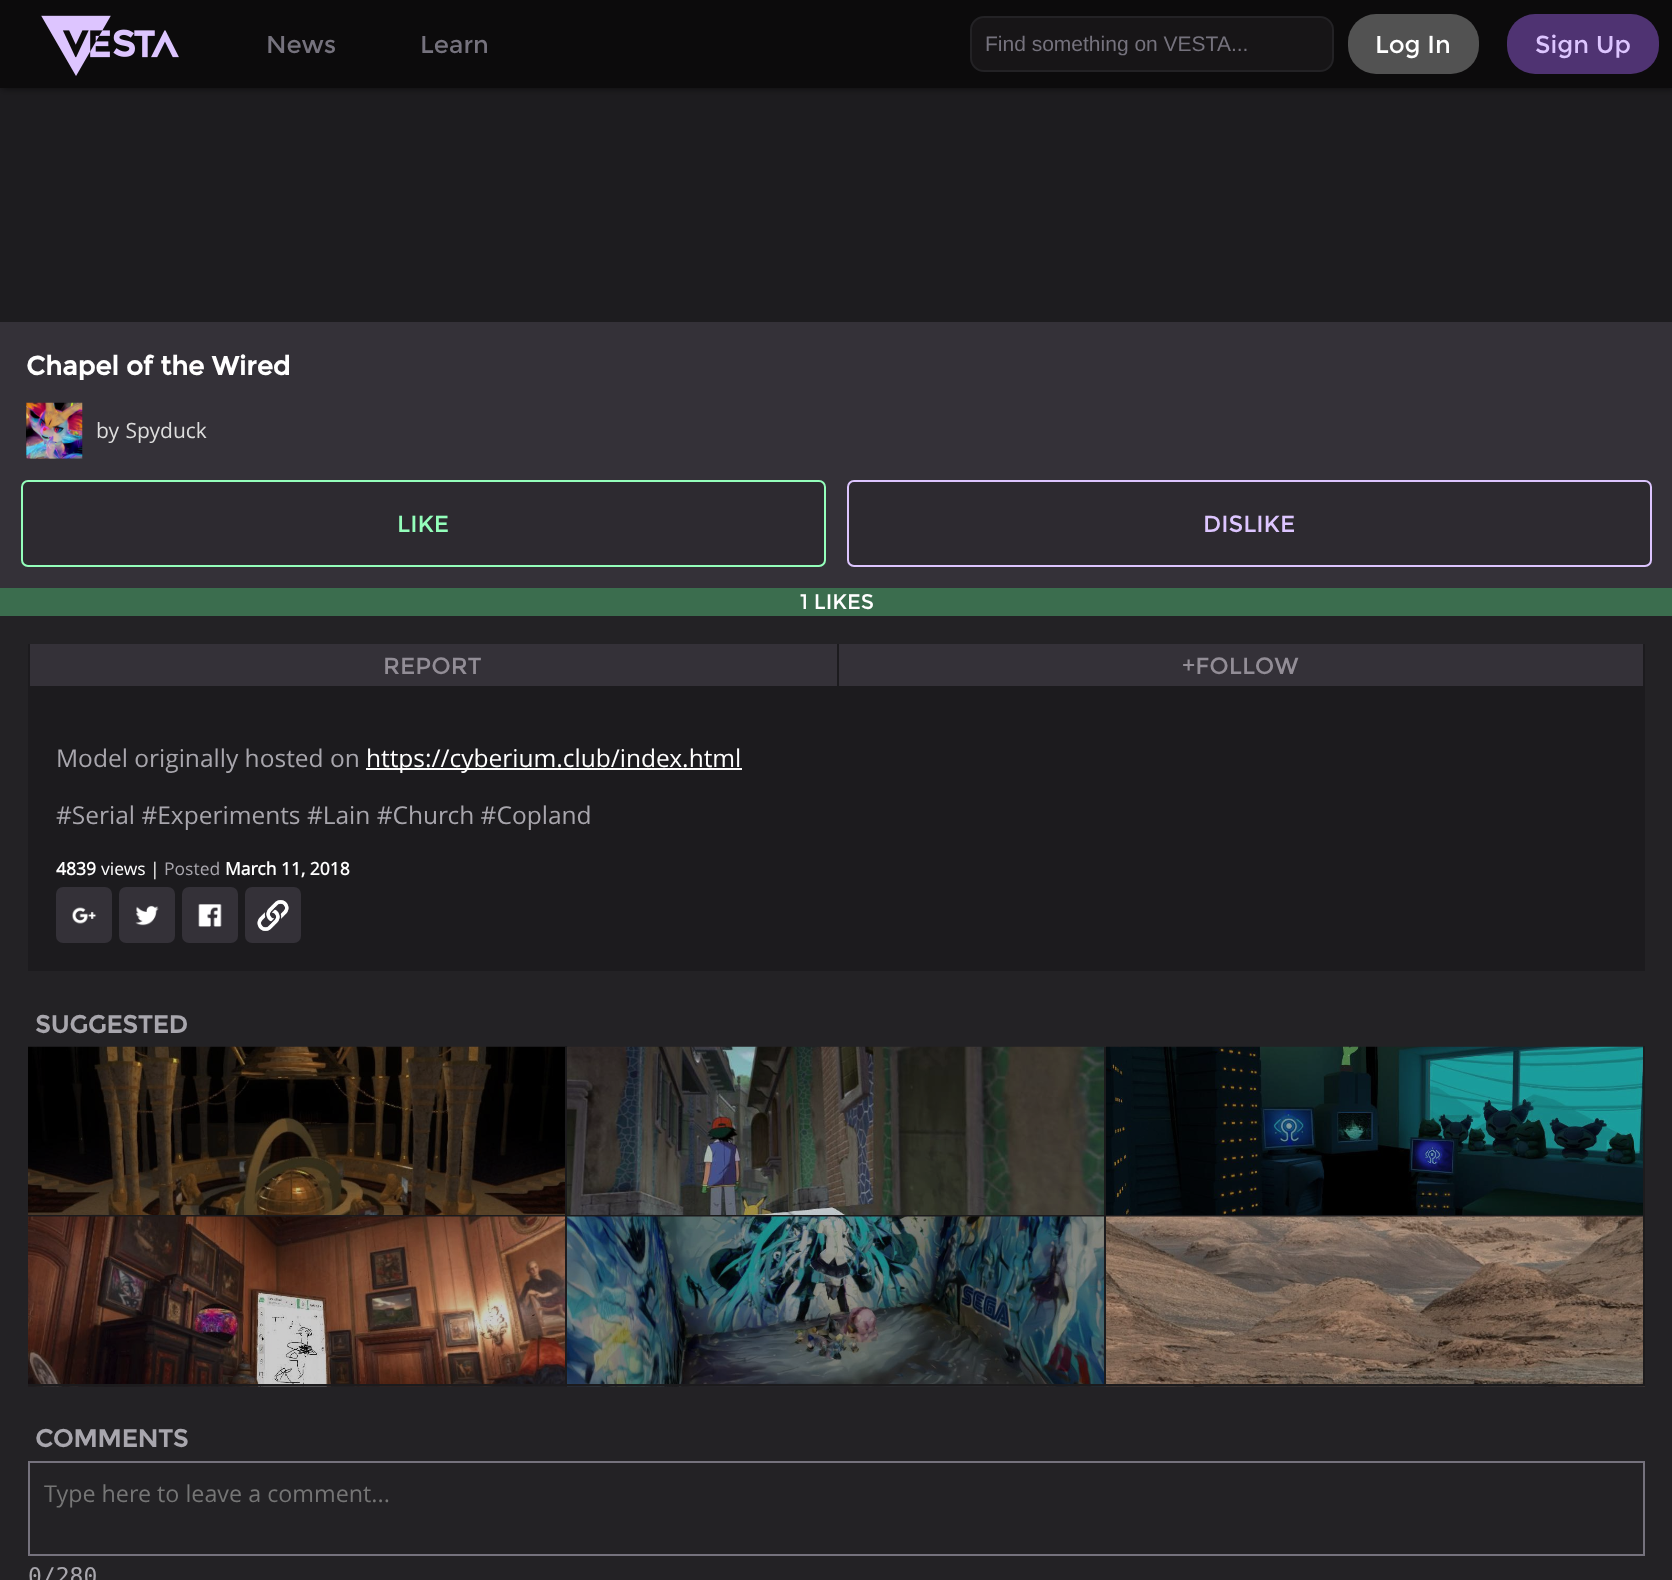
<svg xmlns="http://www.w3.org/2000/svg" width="1672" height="1580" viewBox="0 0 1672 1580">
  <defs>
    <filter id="blur1" x="-50%" y="-200%" width="200%" height="500%"><feGaussianBlur stdDeviation="3.5"/></filter>
  </defs>
  <rect width="100%" height="100%" fill="#1d1c1f"/>
  <rect x="2" y="2" width="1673" height="87" fill="#000000" fill-opacity="0.5" filter="url(#blur1)"/>
  <rect x="0" y="0" width="1672" height="88" fill="#0c0b0c"/>
  <image x="41" y="15" width="138" height="61" href="img1.png"/>
  <text x="266" y="53" font-family="Montserrat" font-size="24.5" fill="#75727d">News</text>
  <text x="420" y="53" font-family="Montserrat" font-size="24.5" fill="#75727d">Learn</text>
  <rect x="971" y="17" width="362" height="54" rx="13" fill="#171517" stroke="#232225" stroke-width="2"/>
  <text x="985" y="51" font-family="Liberation Sans" font-size="21" fill="#75727d">Find something on VESTA...</text>
  <rect x="1348" y="14" width="131" height="60" rx="28" fill="#525252"/>
  <text x="1375" y="53" font-family="Montserrat" font-size="24.5" fill="#ffffff">Log In</text>
  <rect x="1507" y="14" width="152" height="60" rx="28" fill="#4f3372"/>
  <text x="1535" y="53" font-family="Montserrat" font-size="24.5" fill="#ddc5ff">Sign Up</text>
  <rect x="0" y="616" width="1672" height="964" fill="#232225"/>
  <rect x="0" y="322" width="1672" height="266" fill="#343138"/>
  <text x="26" y="375" font-family="Montserrat" font-size="26.25" font-weight="bold" fill="#ffffff">Chapel of the Wired</text>
  <rect x="26" y="403" width="56" height="56" fill="#000000"/>
  <image x="26" y="402" width="57" height="57" href="img2.png"/>
  <text x="96" y="438" word-spacing="1" font-family="Open Sans" font-size="21" fill="#dddddd">by Spyduck</text>
  <rect x="22" y="481" width="803" height="85" rx="6" fill="#2d2a30" stroke="#94ffbb" stroke-width="2"/>
  <text x="397" y="532" font-family="Montserrat" font-size="23.3" fill="#94ffbb">LIKE</text>
  <rect x="848" y="481" width="803" height="85" rx="6" fill="#2d2a30" stroke="#ddc5ff" stroke-width="2"/>
  <text x="1203" y="532" font-family="Montserrat" font-size="23.3" fill="#ddc5ff">DISLIKE</text>
  <rect x="0" y="588" width="1672" height="28" fill="#3b6d4e"/>
  <text x="800" y="609" font-family="Montserrat" font-size="21" fill="#ffffff">1 LIKES</text>
  <rect x="30" y="644" width="1613" height="42" fill="#343138"/>
  <rect x="28" y="686" width="1617" height="285" fill="#1c1b1e"/>
  <rect x="28" y="644" width="2" height="44" fill="#1c1b1e"/>
  <rect x="837" y="644" width="2" height="42" fill="#1c1b1e"/>
  <text x="383" y="674" font-family="Montserrat" font-size="23.3" fill="#928d96">REPORT</text>
  <rect x="1643" y="644" width="2" height="42" fill="#1c1b1e"/>
  <text x="1182" y="674" font-family="Montserrat" font-size="23.3" fill="#928d96">+FOLLOW</text>
  <text x="56" y="767" font-family="Open Sans" font-size="24.5" fill="#a8a6ad">Model originally hosted on</text>
  <rect x="366" y="768" width="376" height="2" fill="#ffffff"/>
  <text x="366" y="767" font-family="Open Sans" font-size="24.5" fill="#ffffff">https://cyberium.club/index.html</text>
  <text x="56" y="824" font-family="Open Sans" font-size="24.5" fill="#a8a6ad">#Serial #Experiments #Lain #Church #Copland</text>
  <text x="56" y="875" font-family="Open Sans" font-size="17.5" font-weight="bold" fill="#ffffff">4839</text>
  <text x="101" y="875" font-family="Open Sans" font-size="17.5" fill="#ffffff">views</text>
  <text x="150" y="875" font-family="Open Sans" font-size="17.5" fill="#ffffff">|</text>
  <text x="164" y="875" font-family="Open Sans" font-size="17.5" fill="#a8a6ad">Posted</text>
  <text x="225" y="875" font-family="Open Sans" font-size="17.5" font-weight="bold" fill="#ffffff">March 11, 2018</text>
  <rect x="56" y="887" width="56" height="56" rx="7" fill="#343138"/>
  <image x="72" y="907" width="25" height="17" href="img3.png"/>
  <rect x="119" y="887" width="56" height="56" rx="7" fill="#343138"/>
  <image x="135" y="905" width="24" height="21" href="img4.png"/>
  <rect x="182" y="887" width="56" height="56" rx="7" fill="#343138"/>
  <image x="198" y="904" width="24" height="23" href="img5.png"/>
  <rect x="245" y="887" width="56" height="56" rx="7" fill="#343138"/>
  <image x="257" y="900" width="32" height="31" href="img6.png"/>
  <text x="35" y="1033" font-family="Montserrat" font-size="24.5" font-weight="bold" fill="#a8a6ad">SUGGESTED</text>
  <image x="28" y="1046" width="539" height="169" href="img7.png"/>
  <rect x="565" y="1047" width="2" height="169" fill="#1c1b1d"/>
  <rect x="28" y="1215" width="539" height="2" fill="#1c1b1d"/>
  <image x="567" y="1046" width="539" height="169" href="img8.png"/>
  <rect x="1104" y="1047" width="2" height="169" fill="#1c1b1d"/>
  <rect x="567" y="1215" width="539" height="2" fill="#1c1b1d"/>
  <image x="1106" y="1046" width="539" height="169" href="img9.png"/>
  <rect x="1643" y="1047" width="2" height="169" fill="#1c1b1d"/>
  <rect x="1106" y="1215" width="539" height="2" fill="#1c1b1d"/>
  <image x="28" y="1216" width="539" height="171" href="img10.png"/>
  <rect x="565" y="1216" width="2" height="170" fill="#1c1b1d"/>
  <rect x="28" y="1384" width="539" height="2" fill="#1c1b1d"/>
  <image x="567" y="1216" width="539" height="171" href="img11.png"/>
  <rect x="1104" y="1216" width="2" height="170" fill="#1c1b1d"/>
  <rect x="567" y="1384" width="539" height="2" fill="#1c1b1d"/>
  <image x="1106" y="1216" width="539" height="171" href="img12.png"/>
  <rect x="1643" y="1216" width="2" height="170" fill="#1c1b1d"/>
  <rect x="1106" y="1384" width="539" height="2" fill="#1c1b1d"/>
  <text x="35" y="1447" font-family="Montserrat" font-size="24.5" font-weight="bold" fill="#a8a6ad">COMMENTS</text>
  <rect x="29" y="1462" width="1615" height="93" fill="none" stroke="#75727d" stroke-width="2"/>
  <text x="44" y="1502" font-family="Open Sans" font-size="23.3" fill="#757575">Type here to leave a comment...</text>
  <text x="28" y="1584" font-family="DejaVu Sans Mono" font-size="23" fill="#a8a6ad">0/280</text>
</svg>
